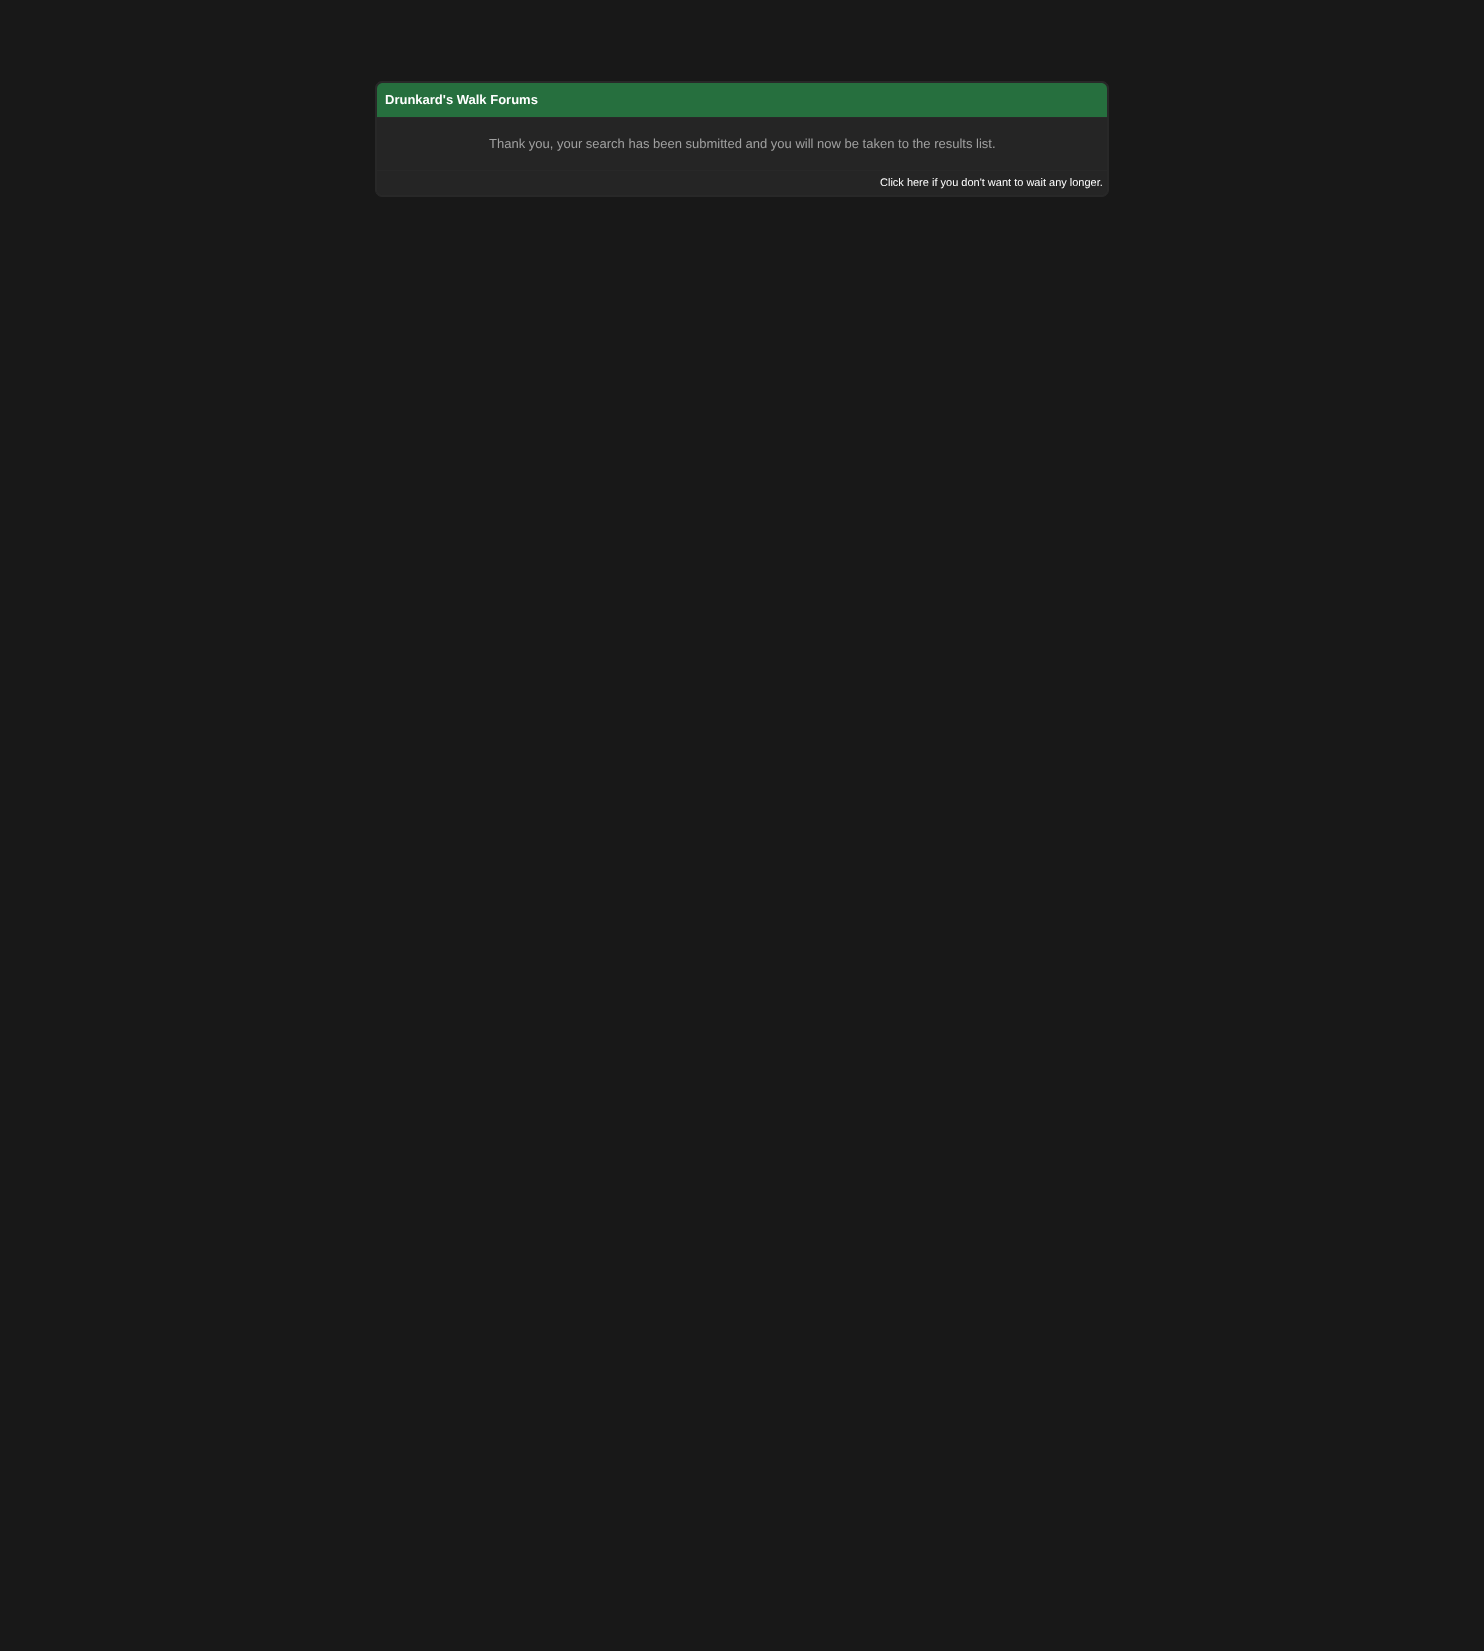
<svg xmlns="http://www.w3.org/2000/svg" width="1484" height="1651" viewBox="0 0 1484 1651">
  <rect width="100%" height="100%" fill="#181818"/>
  <rect x="375.5" y="81.5" width="733" height="115" rx="6.5" fill="#282828" stroke="#282828"/>
  <path d="M383 83H1101C1104.5 83 1107 85.5 1107 89V117H377V89C377 85.5 379.5 83 383 83Z" fill="#266f3e"/>
  <text x="385" y="104" font-family="Liberation Sans" font-size="13" font-weight="bold" fill="#ffffff">Drunkard's Walk Forums</text>
  <rect x="377" y="118" width="730" height="52" fill="#252525"/>
  <text x="489" y="148" font-family="Liberation Sans" font-size="13" fill="#a0a0a0">Thank you, your search has been submitted and you will now be taken to the results list.</text>
  <path d="M377 171H1107V189C1107 192.5 1104.5 195 1101 195H383C379.5 195 377 192.5 377 189Z" fill="#252525"/>
  <text x="880" y="186" font-family="Liberation Sans" font-size="11" fill="#ffffff">Click here if you don't want to wait any longer.</text>
</svg>
